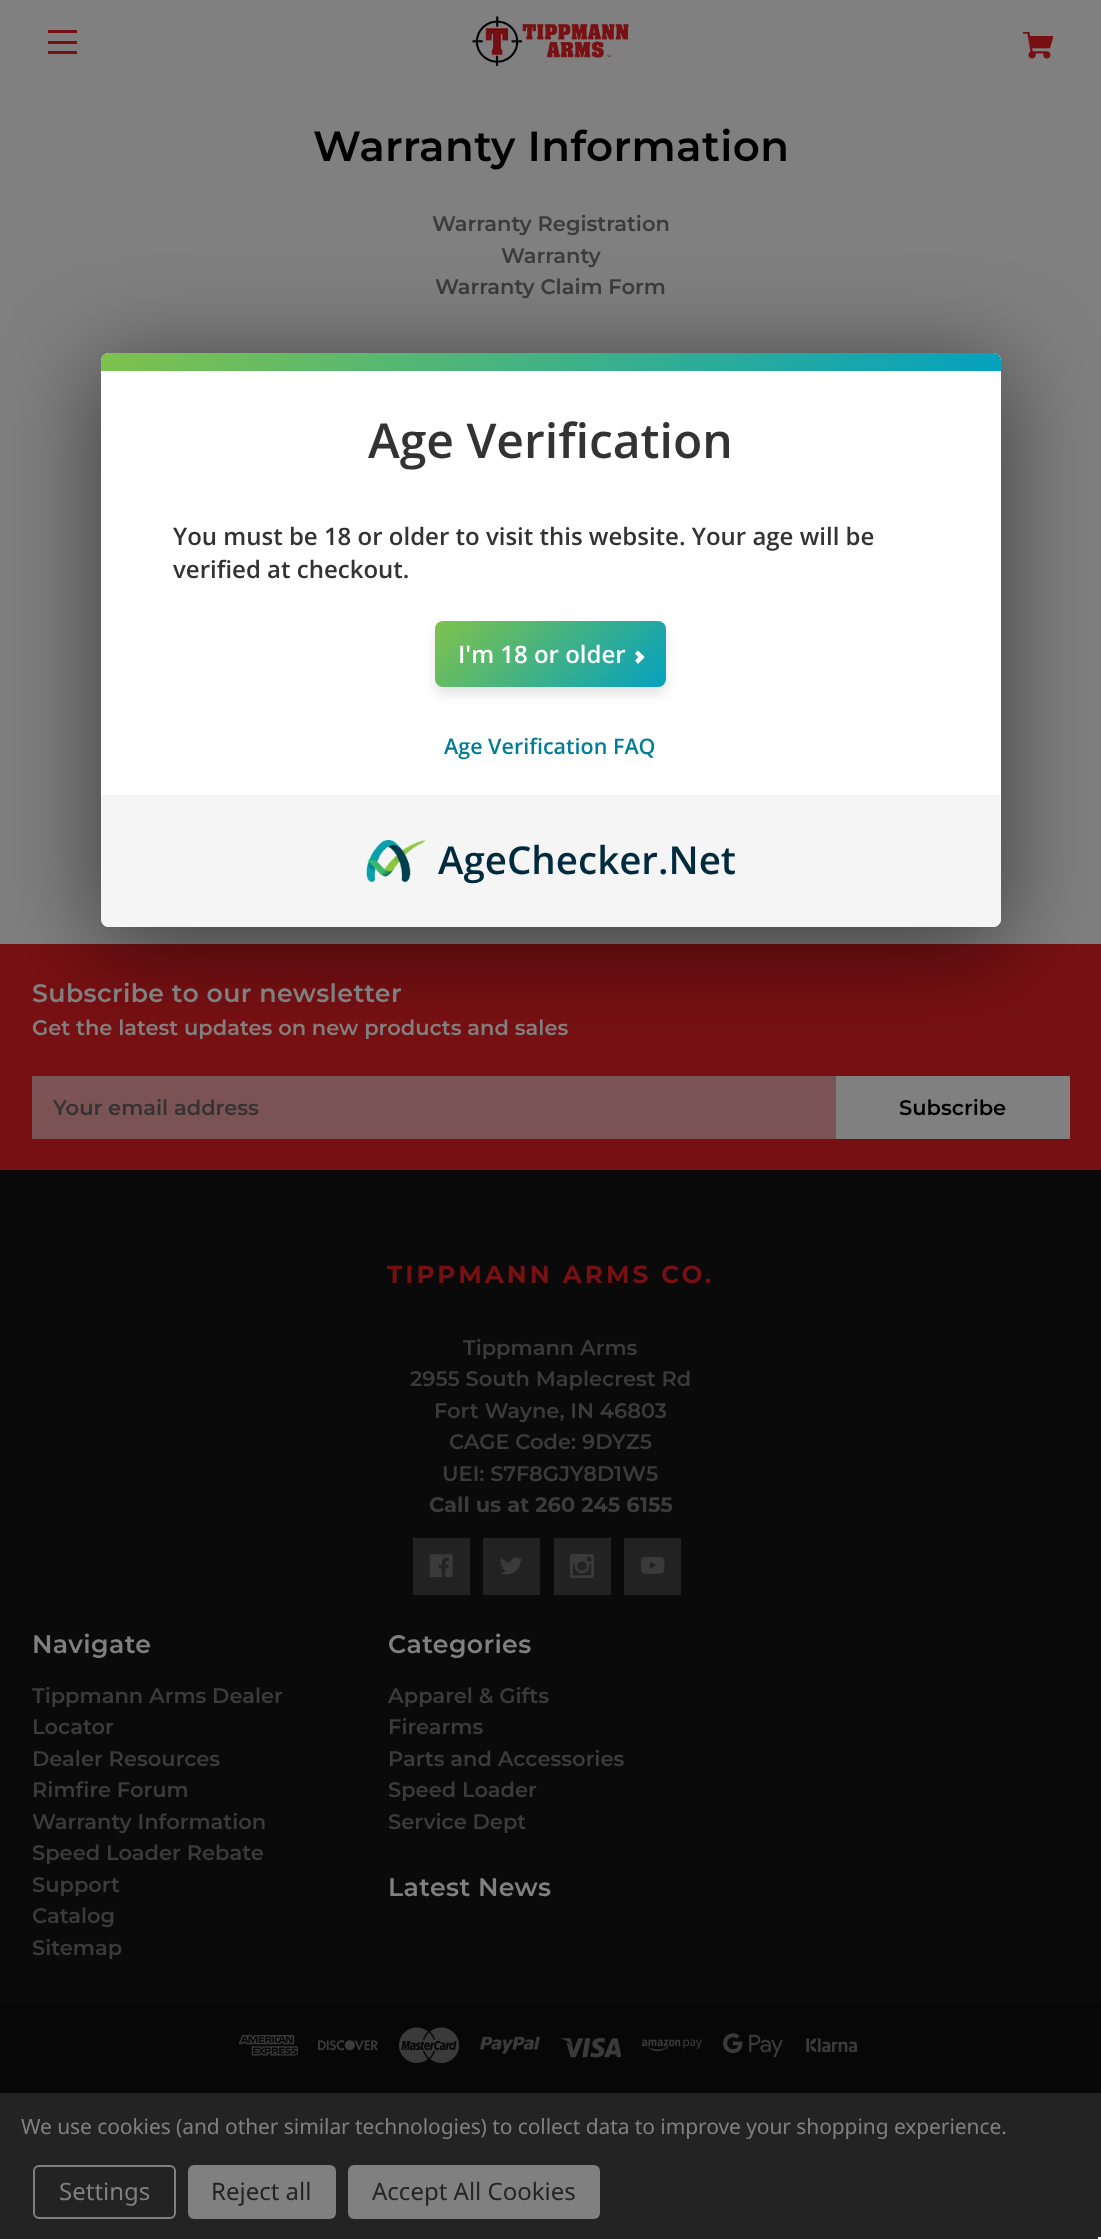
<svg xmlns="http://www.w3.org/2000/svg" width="1101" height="2239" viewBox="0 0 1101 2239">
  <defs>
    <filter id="blur1" x="-50%" y="-200%" width="200%" height="500%"><feGaussianBlur stdDeviation="48"/></filter>
    <linearGradient id="g1" gradientUnits="userSpaceOnUse" x1="321" y1="132" x2="780" y2="591"><stop offset="0" stop-color="#7fc24c"/><stop offset="1" stop-color="#04a1bf"/></linearGradient>
    <filter id="blur2" x="-50%" y="-200%" width="200%" height="500%"><feGaussianBlur stdDeviation="6"/></filter>
    <linearGradient id="g2" gradientUnits="userSpaceOnUse" x1="476" y1="580" x2="625" y2="728"><stop offset="0" stop-color="#7fc24c"/><stop offset="1" stop-color="#04a1bf"/></linearGradient>
    <clipPath id="clip1"><rect x="387" y="1256" width="327" height="37"/></clipPath>
  </defs>
  <rect width="100%" height="100%" fill="#808080"/>
  <rect x="48" y="41" width="29" height="3" fill="#771012"/>
  <rect x="48" y="30" width="29" height="3" fill="#771012"/>
  <rect x="48" y="51" width="29" height="3" fill="#771012"/>
  <image x="472" y="16" width="157" height="50" href="img1.png"/>
  <image x="1023" y="32" width="30" height="27" href="img2.png"/>
  <text x="313" y="161" font-family="Montserrat" font-size="42" font-weight="600" letter-spacing="0.4" fill="#000000">Warranty Information</text>
  <text x="432" y="231" font-family="Montserrat" font-size="21" font-weight="600" fill="#3b3b3b">Warranty Registration</text>
  <text x="501" y="263" font-family="Montserrat" font-size="21" font-weight="600" fill="#3b3b3b">Warranty</text>
  <text x="435" y="294" font-family="Montserrat" font-size="21" font-weight="600" fill="#3b3b3b">Warranty Claim Form</text>
  <rect x="0" y="944" width="1101" height="226" fill="#771012"/>
  <rect x="32" y="1076" width="804" height="63" fill="#7c5354"/>
  <rect x="836" y="1076" width="234" height="63" fill="#808080"/>
  <rect x="96" y="363" width="909" height="584" rx="12" fill="#000000" fill-opacity="0.5" filter="url(#blur1)"/>
  <rect x="101" y="353" width="900" height="574" rx="8" fill="#ffffff"/>
  <path d="M109 353H993C997.5 353 1001 356.5 1001 361V371H101V361C101 356.5 104.5 353 109 353Z" fill="url(#g1)"/>
  <text x="368" y="458" font-family="Open Sans" font-size="48" font-weight="600" fill="#333333">Age Verification</text>
  <text x="173" y="545" font-family="Open Sans" font-size="24" font-weight="600" fill="#333333">You must be 18 or older to visit this website. Your age will be</text>
  <text x="173" y="578" font-family="Open Sans" font-size="24" font-weight="600" fill="#333333">verified at checkout.</text>
  <rect x="435" y="629" width="231" height="66" rx="8" fill="#000000" fill-opacity="0.1" filter="url(#blur2)"/>
  <rect x="435" y="621" width="231" height="66" rx="8" fill="url(#g2)"/>
  <text x="458" y="663" font-family="Open Sans" font-size="24" font-weight="600" fill="#ffffff">I'm 18 or older</text>
  <path d="M635 653.5L638 650.5L644.5 657L641.5 660.5Z" fill="#ffffff"/>
  <path d="M635 660.5L641.5 654L644.5 657L638 664Z" fill="#ffffff"/>
  <text x="444" y="754" font-family="Open Sans" font-size="21.5" font-weight="600" fill="#037d96">Age Verification FAQ</text>
  <path d="M101 795H1001V919C1001 923.5 997.5 927 993 927H109C104.5 927 101 923.5 101 919Z" fill="#f5f5f5"/>
  <image x="366" y="840" width="60" height="42" href="img3.png"/>
  <text x="438" y="874" font-family="Open Sans" font-size="38.5" font-weight="600" fill="#002b3e">AgeChecker.Net</text>
  <text x="32" y="1002" font-family="Montserrat" font-size="25.25" font-weight="600" letter-spacing="0.4" fill="#808080">Subscribe to our newsletter</text>
  <text x="32" y="1035" font-family="Montserrat" font-size="21" font-weight="600" fill="#808080">Get the latest updates on new products and sales</text>
  <text x="53" y="1115" font-family="Montserrat" font-size="21" font-weight="600" fill="#333333">Your email address</text>
  <text x="899" y="1115" font-family="Montserrat" font-size="21" font-weight="600" fill="#000000">Subscribe</text>
  <rect x="0" y="1170" width="1101" height="833" fill="#0a0a0a"/>
  <g clip-path="url(#clip1)">
    <text x="387" y="1283" font-family="Montserrat" font-size="24.75" font-weight="bold" letter-spacing="3" fill="#771012">TIPPMANN ARMS CO.</text>
  </g>
  <text x="463" y="1355" font-family="Montserrat" font-size="21" font-weight="600" fill="#3b3b3b">Tippmann Arms</text>
  <text x="410" y="1386" font-family="Montserrat" font-size="21" font-weight="600" fill="#3b3b3b">2955 South Maplecrest Rd</text>
  <text x="434" y="1418" font-family="Montserrat" font-size="21" font-weight="600" fill="#3b3b3b">Fort Wayne, IN 46803</text>
  <text x="449" y="1449" font-family="Montserrat" font-size="21" font-weight="600" fill="#3b3b3b">CAGE Code: 9DYZ5</text>
  <text x="442" y="1481" font-family="Montserrat" font-size="21" font-weight="600" fill="#3b3b3b">UEI: S7F8GJY8D1W5</text>
  <text x="429" y="1512" font-family="Montserrat" font-size="21" font-weight="bold" fill="#3b3b3b">Call us at 260 245 6155</text>
  <rect x="413" y="1538" width="57" height="57" fill="#222222"/>
  <image x="429" y="1554" width="24" height="24" href="img4.png"/>
  <rect x="483" y="1538" width="57" height="57" fill="#222222"/>
  <image x="500" y="1557" width="23" height="18" href="img5.png"/>
  <rect x="554" y="1538" width="57" height="57" fill="#222222"/>
  <image x="570" y="1554" width="24" height="24" href="img6.png"/>
  <rect x="624" y="1538" width="57" height="57" fill="#222222"/>
  <image x="641" y="1557" width="24" height="17" href="img7.png"/>
  <text x="32" y="1653" font-family="Montserrat" font-size="25.25" font-weight="600" letter-spacing="0.4" fill="#808080">Navigate</text>
  <text x="32" y="1703" font-family="Montserrat" font-size="21" font-weight="600" fill="#3b3b3b">Tippmann Arms Dealer</text>
  <text x="32" y="1734" font-family="Montserrat" font-size="21" font-weight="600" fill="#3b3b3b">Locator</text>
  <text x="32" y="1766" font-family="Montserrat" font-size="21" font-weight="600" fill="#3b3b3b">Dealer Resources</text>
  <text x="32" y="1797" font-family="Montserrat" font-size="21" font-weight="600" fill="#3b3b3b">Rimfire Forum</text>
  <text x="32" y="1829" font-family="Montserrat" font-size="21" font-weight="600" fill="#3b3b3b">Warranty Information</text>
  <text x="32" y="1860" font-family="Montserrat" font-size="21" font-weight="600" fill="#3b3b3b">Speed Loader Rebate</text>
  <text x="32" y="1892" font-family="Montserrat" font-size="21" font-weight="600" fill="#3b3b3b">Support</text>
  <text x="32" y="1923" font-family="Montserrat" font-size="21" font-weight="600" fill="#3b3b3b">Catalog</text>
  <text x="32" y="1955" font-family="Montserrat" font-size="21" font-weight="600" fill="#3b3b3b">Sitemap</text>
  <text x="388" y="1653" font-family="Montserrat" font-size="25.25" font-weight="600" letter-spacing="0.4" fill="#808080">Categories</text>
  <text x="388" y="1703" font-family="Montserrat" font-size="21" font-weight="600" fill="#3b3b3b">Apparel &amp; Gifts</text>
  <text x="388" y="1734" font-family="Montserrat" font-size="21" font-weight="600" fill="#3b3b3b">Firearms</text>
  <text x="388" y="1766" font-family="Montserrat" font-size="21" font-weight="600" fill="#3b3b3b">Parts and Accessories</text>
  <text x="388" y="1797" font-family="Montserrat" font-size="21" font-weight="600" fill="#3b3b3b">Speed Loader</text>
  <text x="388" y="1829" font-family="Montserrat" font-size="21" font-weight="600" fill="#3b3b3b">Service Dept</text>
  <text x="388" y="1896" font-family="Montserrat" font-size="25.25" font-weight="600" letter-spacing="0.4" fill="#808080">Latest News</text>
  <rect x="0" y="2003" width="1101" height="90" fill="#070707"/>
  <image x="239" y="2035" width="59" height="21" href="img8.png"/>
  <image x="318" y="2040" width="60" height="11" href="img9.png"/>
  <image x="399" y="2027" width="60" height="36" href="img10.png"/>
  <image x="480" y="2036" width="60" height="18" href="img11.png"/>
  <image x="561" y="2037" width="60" height="21" href="img12.png"/>
  <image x="642" y="2039" width="60" height="12" href="img13.png"/>
  <image x="723" y="2033" width="60" height="25" href="img14.png"/>
  <image x="806" y="2038" width="53" height="15" href="img15.png"/>
  <rect x="0" y="2093" width="1101" height="146" fill="#232323"/>
  <text x="21" y="2134" font-family="Noto Sans" font-size="21" letter-spacing="-0.08" fill="#808080">We use cookies (and other similar technologies) to collect data to improve your shopping experience.</text>
  <rect x="34" y="2166" width="141" height="52" rx="5" fill="none" stroke="#808080" stroke-width="2"/>
  <text x="59" y="2200" font-family="Noto Sans" font-size="24" fill="#808080">Settings</text>
  <rect x="188" y="2165" width="148" height="54" rx="6" fill="#808080"/>
  <text x="211" y="2200" font-family="Noto Sans" font-size="24" fill="#232323">Reject all</text>
  <rect x="348" y="2165" width="252" height="54" rx="6" fill="#808080"/>
  <text x="372" y="2200" font-family="Noto Sans" font-size="24" fill="#232323">Accept All Cookies</text>
  <rect x="1098" y="2237" width="3" height="2" fill="#f5f5f5"/>
</svg>
